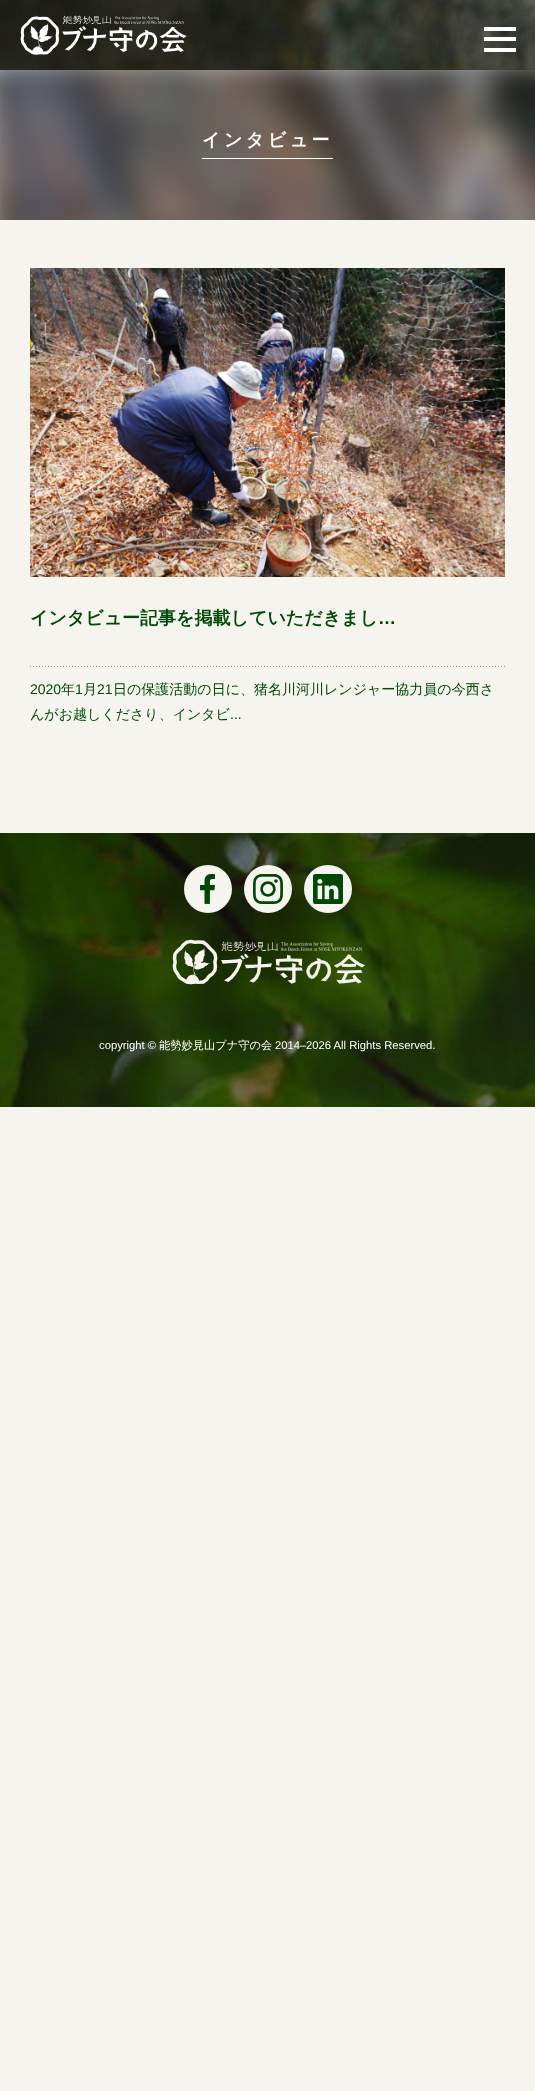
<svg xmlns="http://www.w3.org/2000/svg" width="535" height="2091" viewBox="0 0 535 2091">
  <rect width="100%" height="100%" fill="#f5f4ef"/>
  <image x="0" y="0" width="535" height="70" href="img1.png"/>
  <image x="20" y="15" width="167" height="40" href="img2.png"/>
  <rect x="484" y="37" width="32" height="4" fill="#ffffff"/>
  <rect x="484" y="27" width="32" height="4" fill="#ffffff"/>
  <rect x="484" y="48" width="32" height="4" fill="#ffffff"/>
  <image x="0" y="70" width="535" height="150" href="img3.png"/>
  <rect x="202" y="158" width="131" height="1" fill="#ffffff"/>
  <text x="202" y="146" font-family="WenQuanYi Zen Hei" font-size="18" font-weight="bold" letter-spacing="3.5" fill="#fffffe">インタビュー</text>
  <image x="30" y="268" width="475" height="309" href="img4.png"/>
  <image x="30" y="666" width="475" height="1" href="img5.png"/>
  <text x="30" y="624" font-family="WenQuanYi Zen Hei" font-size="18" font-weight="bold" fill="#004804">インタビュー記事を掲載していただきまし</text>
  <text x="378" y="624" font-family="Liberation Sans" font-size="18" font-weight="bold" fill="#004804">…</text>
  <text x="30" y="694" font-family="Liberation Sans" font-size="14" fill="#004804">2020</text>
  <text x="61" y="694" font-family="WenQuanYi Zen Hei" font-size="14" font-weight="500" fill="#004804">年</text>
  <text x="75" y="694" font-family="Liberation Sans" font-size="14" fill="#004804">1</text>
  <text x="83" y="694" font-family="WenQuanYi Zen Hei" font-size="14" font-weight="500" fill="#004804">月</text>
  <text x="97" y="694" font-family="Liberation Sans" font-size="14" fill="#004804">21</text>
  <text x="113" y="694" font-family="WenQuanYi Zen Hei" font-size="14" font-weight="500" fill="#004804">日の保護活動の日に、猪名川河川レンジャー協力員の今西さ</text>
  <text x="30" y="719" font-family="WenQuanYi Zen Hei" font-size="14" font-weight="500" fill="#004804">んがお越しくださり、インタビ</text>
  <text x="230" y="719" font-family="Liberation Sans" font-size="14" fill="#004804">...</text>
  <image x="0" y="833" width="535" height="274" href="img6.png"/>
  <circle cx="208" cy="889" r="24" fill="#f5f4ef"/>
  <image x="200" y="874" width="15" height="30" href="img7.png"/>
  <circle cx="268" cy="889" r="24" fill="#f5f4ef"/>
  <image x="253" y="874" width="30" height="30" href="img8.png"/>
  <circle cx="328" cy="889" r="24" fill="#f5f4ef"/>
  <image x="313" y="874" width="30" height="30" href="img9.png"/>
  <image x="172" y="939" width="193" height="46" href="img10.png"/>
  <text x="99" y="1049" font-family="Liberation Sans" font-size="11.25" fill="#fffffe">copyright ©</text>
  <text x="159" y="1049" font-family="WenQuanYi Zen Hei" font-size="11.25" font-weight="500" fill="#fffffe">能勢妙見山ブナ守の会</text>
  <text x="275" y="1049" font-family="Liberation Sans" font-size="11.25" fill="#fffffe">2014–</text>
  <text x="306" y="1049" font-family="Liberation Sans" font-size="11.25" fill="#fffffe">2026 All Rights Reserved.</text>
</svg>
